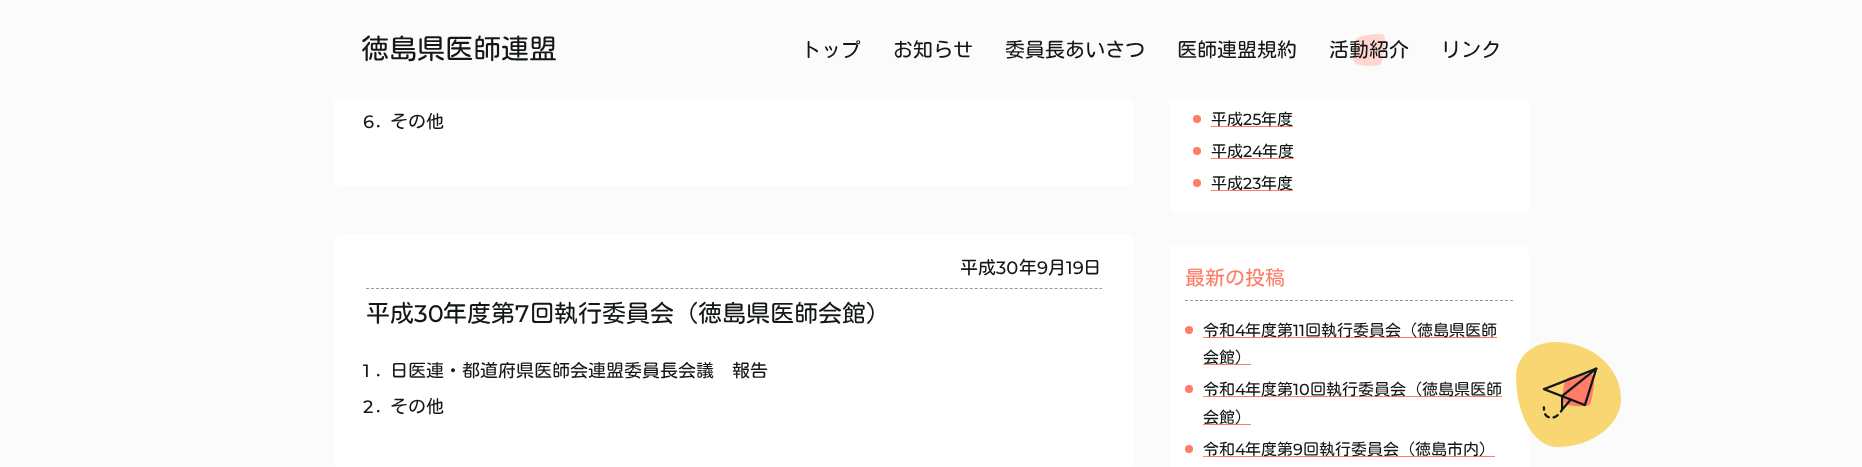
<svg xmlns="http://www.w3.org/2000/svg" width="1862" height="467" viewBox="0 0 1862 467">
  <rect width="100%" height="100%" fill="#fbfbfb"/>
  <rect x="334" y="-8" width="800" height="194" rx="8" fill="#ffffff"/>
  <rect x="1169" y="-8" width="360" height="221" rx="8" fill="#ffffff"/>
  <rect x="334" y="0" width="1195" height="100" fill="#fbfbfb"/>
  <text x="361" y="59" font-family="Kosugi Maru" font-size="28" fill="#131717">徳島県医師連盟</text>
  <text x="801" y="57" font-family="Kosugi Maru" font-size="20" fill="#131717">トップ</text>
  <text x="893" y="57" font-family="Kosugi Maru" font-size="20" fill="#131717">お知らせ</text>
  <text x="1005" y="57" font-family="Kosugi Maru" font-size="20" fill="#131717">委員長あいさつ</text>
  <text x="1177" y="57" font-family="Kosugi Maru" font-size="20" fill="#131717">医師連盟規約</text>
  <image x="1353" y="34" width="32" height="32" href="img1.png"/>
  <text x="1329" y="57" font-family="Kosugi Maru" font-size="20" fill="#131717">活動紹介</text>
  <text x="1441" y="57" font-family="Kosugi Maru" font-size="20" fill="#131717">リンク</text>
  <text x="363" y="128" font-family="Montserrat" font-size="18" font-weight="500" fill="#131717">6</text>
  <text x="376" y="128" font-family="Kosugi Maru" font-size="18" fill="#131717">.</text>
  <text x="390" y="128" font-family="Kosugi Maru" font-size="18" fill="#131717">その他</text>
  <rect x="334" y="234" width="800" height="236" rx="8" fill="#ffffff"/>
  <text x="960" y="274" font-family="Kosugi Maru" font-size="18" fill="#131717">平成</text>
  <text x="996" y="274" font-family="Montserrat" font-size="18" font-weight="500" fill="#131717">30</text>
  <text x="1019" y="274" font-family="Kosugi Maru" font-size="18" fill="#131717">年</text>
  <text x="1037" y="274" font-family="Montserrat" font-size="18" font-weight="500" fill="#131717">9</text>
  <text x="1048" y="274" font-family="Kosugi Maru" font-size="18" fill="#131717">月</text>
  <text x="1066" y="274" font-family="Montserrat" font-size="18" font-weight="500" fill="#131717">19</text>
  <text x="1083" y="274" font-family="Kosugi Maru" font-size="18" fill="#131717">日</text>
  <path d="M366 288.5H1102" fill="none" stroke="#999999" stroke-dasharray="3 1.99"/>
  <text x="366" y="322" font-family="Kosugi Maru" font-size="24" fill="#131717">平成</text>
  <text x="414" y="322" font-family="Montserrat" font-size="24" font-weight="500" fill="#131717">30</text>
  <text x="443" y="322" font-family="Kosugi Maru" font-size="24" fill="#131717">年度第</text>
  <text x="515" y="322" font-family="Montserrat" font-size="24" font-weight="500" fill="#131717">7</text>
  <text x="530" y="322" font-family="Kosugi Maru" font-size="24" fill="#131717">回執行委員会（徳島県医師会館）</text>
  <text x="363" y="377" font-family="Montserrat" font-size="18" font-weight="500" fill="#131717">1</text>
  <text x="376" y="377" font-family="Kosugi Maru" font-size="18" fill="#131717">.</text>
  <text x="390" y="377" font-family="Kosugi Maru" font-size="18" fill="#131717">日医連・都道府県医師会連盟委員長会議　報告</text>
  <text x="363" y="413" font-family="Montserrat" font-size="18" font-weight="500" fill="#131717">2</text>
  <text x="376" y="413" font-family="Kosugi Maru" font-size="18" fill="#131717">.</text>
  <text x="390" y="413" font-family="Kosugi Maru" font-size="18" fill="#131717">その他</text>
  <circle cx="1197" cy="119" r="4" fill="#ff7c66"/>
  <rect x="1211" y="126" width="82" height="1" fill="#ff7c66"/>
  <text x="1211" y="125" font-family="Kosugi Maru" font-size="16" fill="#131717">平成</text>
  <text x="1243" y="125" font-family="Montserrat" font-size="16" font-weight="500" fill="#131717">25</text>
  <text x="1261" y="125" font-family="Kosugi Maru" font-size="16" fill="#131717">年度</text>
  <circle cx="1197" cy="151" r="4" fill="#ff7c66"/>
  <rect x="1211" y="158" width="83" height="1" fill="#ff7c66"/>
  <text x="1211" y="157" font-family="Kosugi Maru" font-size="16" fill="#131717">平成</text>
  <text x="1243" y="157" font-family="Montserrat" font-size="16" font-weight="500" fill="#131717">24</text>
  <text x="1262" y="157" font-family="Kosugi Maru" font-size="16" fill="#131717">年度</text>
  <circle cx="1197" cy="183" r="4" fill="#ff7c66"/>
  <rect x="1211" y="190" width="82" height="1" fill="#ff7c66"/>
  <text x="1211" y="189" font-family="Kosugi Maru" font-size="16" fill="#131717">平成</text>
  <text x="1243" y="189" font-family="Montserrat" font-size="16" font-weight="500" fill="#131717">23</text>
  <text x="1261" y="189" font-family="Kosugi Maru" font-size="16" fill="#131717">年度</text>
  <rect x="1169" y="245" width="360" height="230" rx="8" fill="#ffffff"/>
  <path d="M1185 300.5H1513" fill="none" stroke="#999999" stroke-dasharray="3 2"/>
  <text x="1185" y="285" font-family="Kosugi Maru" font-size="20" fill="#ff7c66">最新の投稿</text>
  <circle cx="1189" cy="330" r="4" fill="#ff7c66"/>
  <rect x="1203" y="337" width="294" height="1" fill="#ff7c66"/>
  <text x="1203" y="336" font-family="Kosugi Maru" font-size="16" fill="#131717">令和</text>
  <text x="1235" y="336" font-family="Montserrat" font-size="16" font-weight="500" fill="#131717">4</text>
  <text x="1245" y="336" font-family="Kosugi Maru" font-size="16" fill="#131717">年度第</text>
  <text x="1293" y="336" font-family="Montserrat" font-size="16" font-weight="500" fill="#131717">11</text>
  <text x="1305" y="336" font-family="Kosugi Maru" font-size="16" fill="#131717">回執行委員会（徳島県医師</text>
  <rect x="1203" y="364" width="48" height="1" fill="#ff7c66"/>
  <text x="1203" y="363" font-family="Kosugi Maru" font-size="16" fill="#131717">会館）</text>
  <circle cx="1189" cy="389" r="4" fill="#ff7c66"/>
  <rect x="1203" y="396" width="299" height="1" fill="#ff7c66"/>
  <text x="1203" y="395" font-family="Kosugi Maru" font-size="16" fill="#131717">令和</text>
  <text x="1235" y="395" font-family="Montserrat" font-size="16" font-weight="500" fill="#131717">4</text>
  <text x="1245" y="395" font-family="Kosugi Maru" font-size="16" fill="#131717">年度第</text>
  <text x="1293" y="395" font-family="Montserrat" font-size="16" font-weight="500" fill="#131717">10</text>
  <text x="1310" y="395" font-family="Kosugi Maru" font-size="16" fill="#131717">回執行委員会（徳島県医師</text>
  <rect x="1203" y="424" width="48" height="1" fill="#ff7c66"/>
  <text x="1203" y="423" font-family="Kosugi Maru" font-size="16" fill="#131717">会館）</text>
  <circle cx="1189" cy="449" r="4" fill="#ff7c66"/>
  <rect x="1203" y="456" width="292" height="1" fill="#ff7c66"/>
  <text x="1203" y="455" font-family="Kosugi Maru" font-size="16" fill="#131717">令和</text>
  <text x="1235" y="455" font-family="Montserrat" font-size="16" font-weight="500" fill="#131717">4</text>
  <text x="1245" y="455" font-family="Kosugi Maru" font-size="16" fill="#131717">年度第</text>
  <text x="1293" y="455" font-family="Montserrat" font-size="16" font-weight="500" fill="#131717">9</text>
  <text x="1303" y="455" font-family="Kosugi Maru" font-size="16" fill="#131717">回執行委員会（徳島市内）</text>
  <path d="M1555 342C1591 342 1621 367 1621 399C1621 425 1592 447 1557 447C1534 447 1516 415 1516 376C1516 357 1533 342 1555 342Z" fill="#f8d772"/>
  <image x="1542" y="367" width="56" height="52" href="img2.png"/>
</svg>
